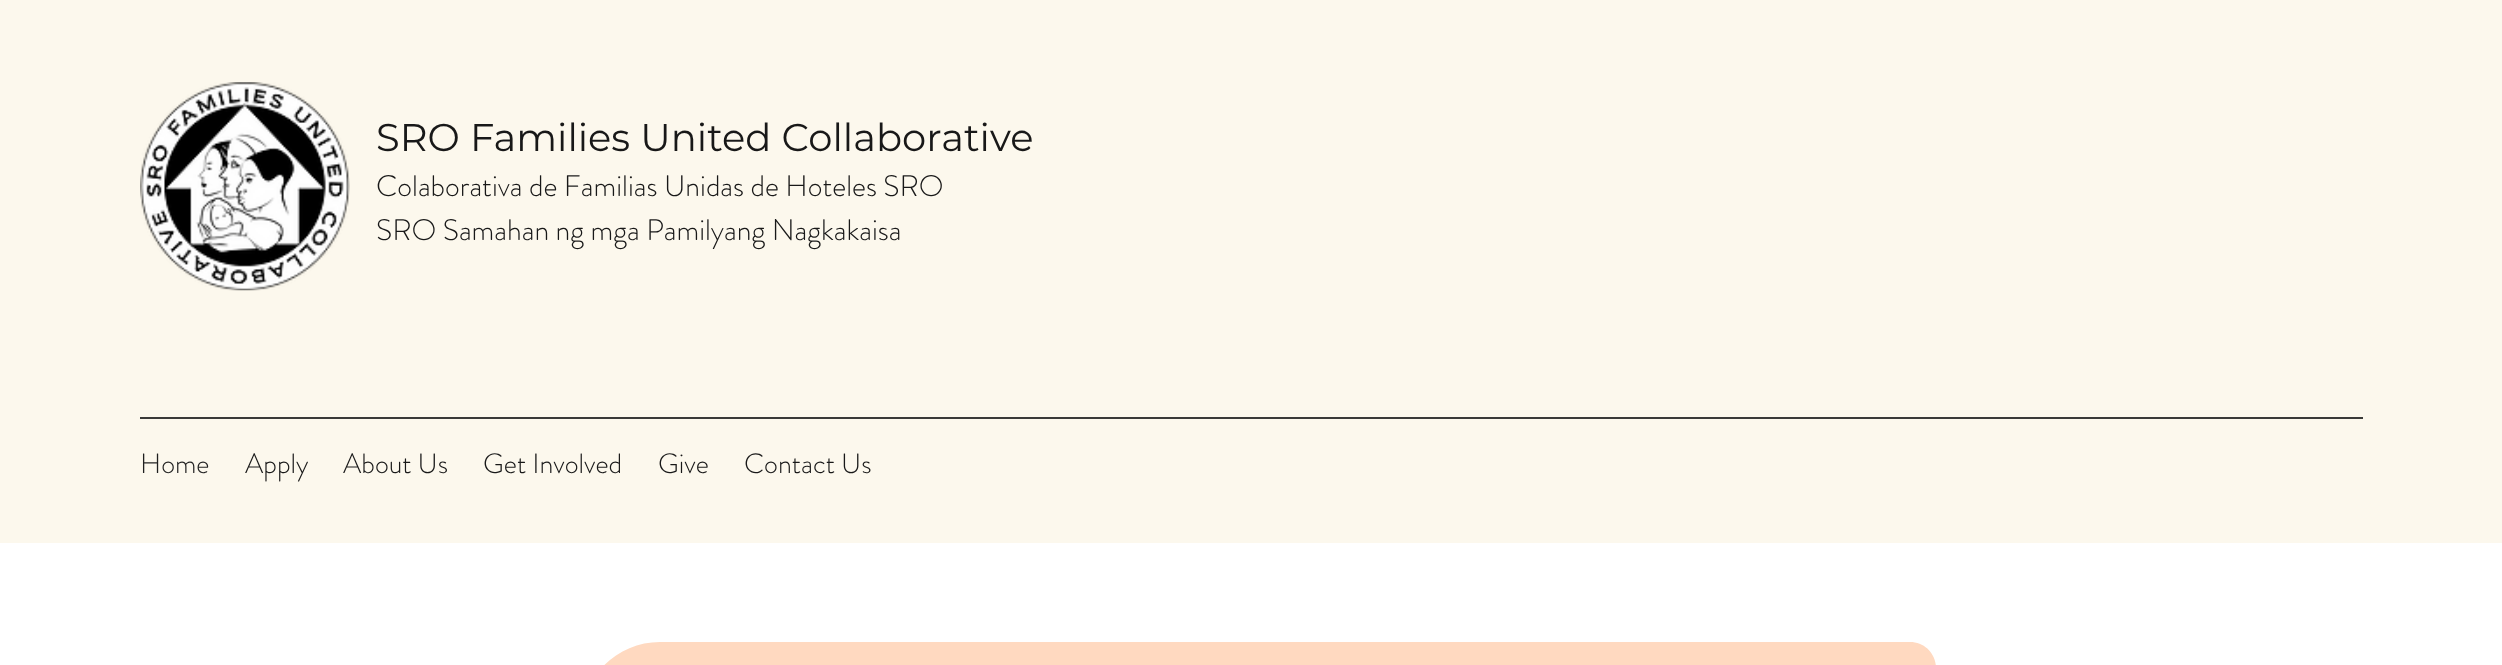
<svg xmlns="http://www.w3.org/2000/svg" width="2502" height="665" viewBox="0 0 2502 665">
  <rect width="100%" height="100%" fill="#ffffff"/>
  <rect x="0" y="0" width="2502" height="543" fill="#fcf8ed"/>
  <image x="140" y="82" width="210" height="209" href="img1.png"/>
  <text x="376" y="151" font-family="Montserrat" font-size="38.5" fill="#181818">SRO Families United Collaborative</text>
  <text x="376" y="196" font-family="'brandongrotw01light'" font-size="29.75" font-weight="300" fill="#181818">Colaborativa de Familias Unidas de Hoteles SRO</text>
  <text x="376" y="240" font-family="'brandongrotw01light'" font-size="29.75" font-weight="300" fill="#181818">SRO Samahan ng mga Pamilyang Nagkakaisa</text>
  <rect x="140" y="417" width="2223" height="2" fill="#3a3a38"/>
  <text x="140" y="473" font-family="'brandongrotw01light'" font-size="28" font-weight="300" fill="#1f1f1f">Home</text>
  <text x="245" y="473" font-family="'brandongrotw01light'" font-size="28" font-weight="300" fill="#181818">Apply</text>
  <text x="343" y="473" font-family="'brandongrotw01light'" font-size="28" font-weight="300" fill="#181818">About Us</text>
  <text x="483" y="473" font-family="'brandongrotw01light'" font-size="28" font-weight="300" fill="#181818">Get Involved</text>
  <text x="658" y="473" font-family="'brandongrotw01light'" font-size="28" font-weight="300" fill="#181818">Give</text>
  <text x="744" y="473" font-family="'brandongrotw01light'" font-size="28" font-weight="300" fill="#181818">Contact Us</text>
  <path d="M660 642H1910C1924.5 642 1936 653.5 1936 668V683C1936 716.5 1908.5 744 1875 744H607C592.5 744 581 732.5 581 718V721C581 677.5 616.5 642 660 642Z" fill="#ffd9c0"/>
</svg>
